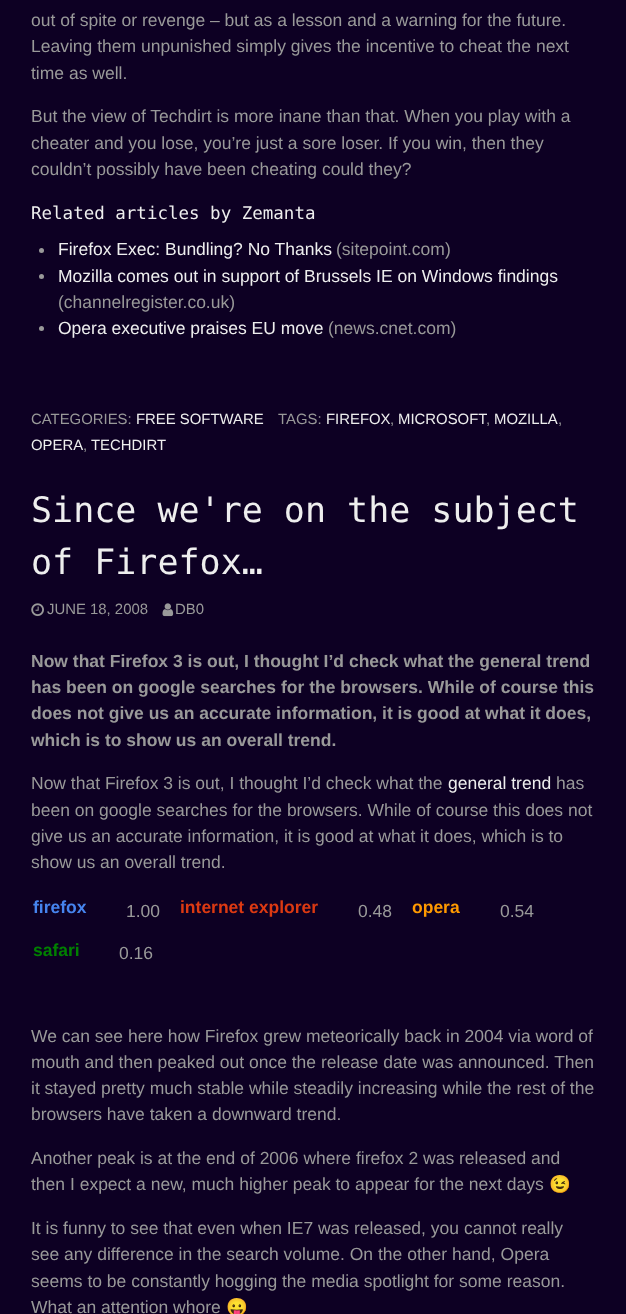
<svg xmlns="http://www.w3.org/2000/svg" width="626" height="1314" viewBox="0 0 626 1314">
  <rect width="100%" height="100%" fill="#0d0023"/>
  <text x="31" y="26" font-family="Liberation Sans" font-size="17.5" fill="#999999">out of spite or revenge – but as a lesson and a warning for the future.</text>
  <text x="31" y="52" font-family="Liberation Sans" font-size="17.5" fill="#999999">Leaving them unpunished simply gives the incentive to cheat the next</text>
  <text x="31" y="79" font-family="Liberation Sans" font-size="17.5" fill="#999999">time as well.</text>
  <text x="31" y="122" font-family="Liberation Sans" font-size="17.5" fill="#999999">But the view of Techdirt is more inane than that. When you play with a</text>
  <text x="31" y="149" font-family="Liberation Sans" font-size="17.5" fill="#999999">cheater and you lose, you’re just a sore loser. If you win, then they</text>
  <text x="31" y="175" font-family="Liberation Sans" font-size="17.5" fill="#999999">couldn’t possibly have been cheating could they?</text>
  <text x="31" y="219" font-family="DejaVu Sans Mono" font-size="17.5" fill="#eeeeee">Related articles by Zemanta</text>
  <circle cx="41.5" cy="250.5" r="2.5" fill="#999999"/>
  <text x="58" y="255" font-family="Liberation Sans" font-size="17.5" fill="#eeeeee">Firefox Exec: Bundling? No Thanks</text>
  <text x="336" y="255" font-family="Liberation Sans" font-size="17.5" fill="#999999">(sitepoint.com)</text>
  <circle cx="41.5" cy="276.5" r="2.5" fill="#999999"/>
  <text x="58" y="282" font-family="Liberation Sans" font-size="17.5" fill="#eeeeee">Mozilla comes out in support of Brussels IE on Windows findings</text>
  <text x="58" y="308" font-family="Liberation Sans" font-size="17.5" fill="#999999">(channelregister.co.uk)</text>
  <circle cx="41.5" cy="328.5" r="2.5" fill="#999999"/>
  <text x="58" y="334" font-family="Liberation Sans" font-size="17.5" fill="#eeeeee">Opera executive praises EU move</text>
  <text x="328" y="334" font-family="Liberation Sans" font-size="17.5" fill="#999999">(news.cnet.com)</text>
  <text x="31" y="424" font-family="Liberation Sans" font-size="14.9" fill="#999999">CATEGORIES:</text>
  <text x="136" y="424" font-family="Liberation Sans" font-size="14.9" fill="#eeeeee">FREE SOFTWARE</text>
  <text x="278" y="424" font-family="Liberation Sans" font-size="14.9" fill="#999999">TAGS:</text>
  <text x="326" y="424" font-family="Liberation Sans" font-size="14.9" fill="#eeeeee">FIREFOX</text>
  <text x="390" y="424" font-family="Liberation Sans" font-size="14.9" fill="#999999">,</text>
  <text x="398" y="424" font-family="Liberation Sans" font-size="14.9" fill="#eeeeee">MICROSOFT</text>
  <text x="494" y="424" font-family="Liberation Sans" font-size="14.9" fill="#eeeeee">MOZILLA</text>
  <text x="486" y="424" font-family="Liberation Sans" font-size="14.9" fill="#999999">,</text>
  <text x="558" y="424" font-family="Liberation Sans" font-size="14.9" fill="#999999">,</text>
  <text x="31" y="450" font-family="Liberation Sans" font-size="14.9" fill="#eeeeee">OPERA</text>
  <text x="83" y="450" font-family="Liberation Sans" font-size="14.9" fill="#999999">,</text>
  <text x="91" y="450" font-family="Liberation Sans" font-size="14.9" fill="#eeeeee">TECHDIRT</text>
  <text x="31" y="522" font-family="DejaVu Sans Mono" font-size="35" fill="#eeeeee">Since we're on the subject</text>
  <text x="31" y="574" font-family="DejaVu Sans Mono" font-size="35" fill="#eeeeee">of Firefox…</text>
  <image x="31" y="603" width="13" height="14" href="img1.png"/>
  <text x="47" y="614" font-family="Liberation Sans" font-size="14.9" fill="#999999">JUNE 18, 2008</text>
  <image x="162" y="603" width="12" height="14" href="img2.png"/>
  <text x="175" y="614" font-family="Liberation Sans" font-size="14.9" fill="#999999">DB0</text>
  <text x="31" y="667" font-family="Liberation Sans" font-size="17.5" font-weight="bold" fill="#999999">Now that Firefox 3 is out, I thought I’d check what the general trend</text>
  <text x="31" y="693" font-family="Liberation Sans" font-size="17.5" font-weight="bold" fill="#999999">has been on google searches for the browsers. While of course this</text>
  <text x="31" y="719" font-family="Liberation Sans" font-size="17.5" font-weight="bold" fill="#999999">does not give us an accurate information, it is good at what it does,</text>
  <text x="31" y="746" font-family="Liberation Sans" font-size="17.5" font-weight="bold" fill="#999999">which is to show us an overall trend.</text>
  <text x="31" y="789" font-family="Liberation Sans" font-size="17.5" fill="#999999">Now that Firefox 3 is out, I thought I’d check what the</text>
  <text x="448" y="789" font-family="Liberation Sans" font-size="17.5" fill="#eeeeee">general trend</text>
  <text x="556" y="789" font-family="Liberation Sans" font-size="17.5" fill="#999999">has</text>
  <text x="31" y="816" font-family="Liberation Sans" font-size="17.5" fill="#999999">been on google searches for the browsers. While of course this does not</text>
  <text x="31" y="842" font-family="Liberation Sans" font-size="17.5" fill="#999999">give us an accurate information, it is good at what it does, which is to</text>
  <text x="31" y="868" font-family="Liberation Sans" font-size="17.5" fill="#999999">show us an overall trend.</text>
  <text x="33" y="913" font-family="Liberation Sans" font-size="17.5" font-weight="bold" fill="#4684ee">firefox</text>
  <text x="126" y="917" font-family="Liberation Sans" font-size="17.5" fill="#999999">1.00</text>
  <text x="180" y="913" font-family="Liberation Sans" font-size="17.5" font-weight="bold" fill="#dc3912">internet explorer</text>
  <text x="358" y="917" font-family="Liberation Sans" font-size="17.5" fill="#999999">0.48</text>
  <text x="412" y="913" font-family="Liberation Sans" font-size="17.5" font-weight="bold" fill="#ff9900">opera</text>
  <text x="500" y="917" font-family="Liberation Sans" font-size="17.5" fill="#999999">0.54</text>
  <text x="33" y="956" font-family="Liberation Sans" font-size="17.5" font-weight="bold" fill="#008000">safari</text>
  <text x="119" y="959" font-family="Liberation Sans" font-size="17.5" fill="#999999">0.16</text>
  <text x="31" y="1042" font-family="Liberation Sans" font-size="17.5" fill="#999999">We can see here how Firefox grew meteorically back in 2004 via word of</text>
  <text x="31" y="1068" font-family="Liberation Sans" font-size="17.5" fill="#999999">mouth and then peaked out once the release date was announced. Then</text>
  <text x="31" y="1094" font-family="Liberation Sans" font-size="17.5" fill="#999999">it stayed pretty much stable while steadily increasing while the rest of the</text>
  <text x="31" y="1120" font-family="Liberation Sans" font-size="17.5" fill="#999999">browsers have taken a downward trend.</text>
  <text x="31" y="1164" font-family="Liberation Sans" font-size="17.5" fill="#999999">Another peak is at the end of 2006 where firefox 2 was released and</text>
  <text x="31" y="1190" font-family="Liberation Sans" font-size="17.5" fill="#999999">then I expect a new, much higher peak to appear for the next days</text>
  <text x="549" y="1190" font-family="Noto Color Emoji" font-size="17.5" fill="#999999">😉</text>
  <text x="31" y="1234" font-family="Liberation Sans" font-size="17.5" fill="#999999">It is funny to see that even when IE7 was released, you cannot really</text>
  <text x="31" y="1260" font-family="Liberation Sans" font-size="17.5" fill="#999999">see any difference in the search volume. On the other hand, Opera</text>
  <text x="31" y="1287" font-family="Liberation Sans" font-size="17.5" fill="#999999">seems to be constantly hogging the media spotlight for some reason.</text>
  <text x="31" y="1313" font-family="Liberation Sans" font-size="17.5" fill="#999999">What an attention whore</text>
  <text x="226" y="1313" font-family="Noto Color Emoji" font-size="17.5" fill="#999999">😛</text>
</svg>
